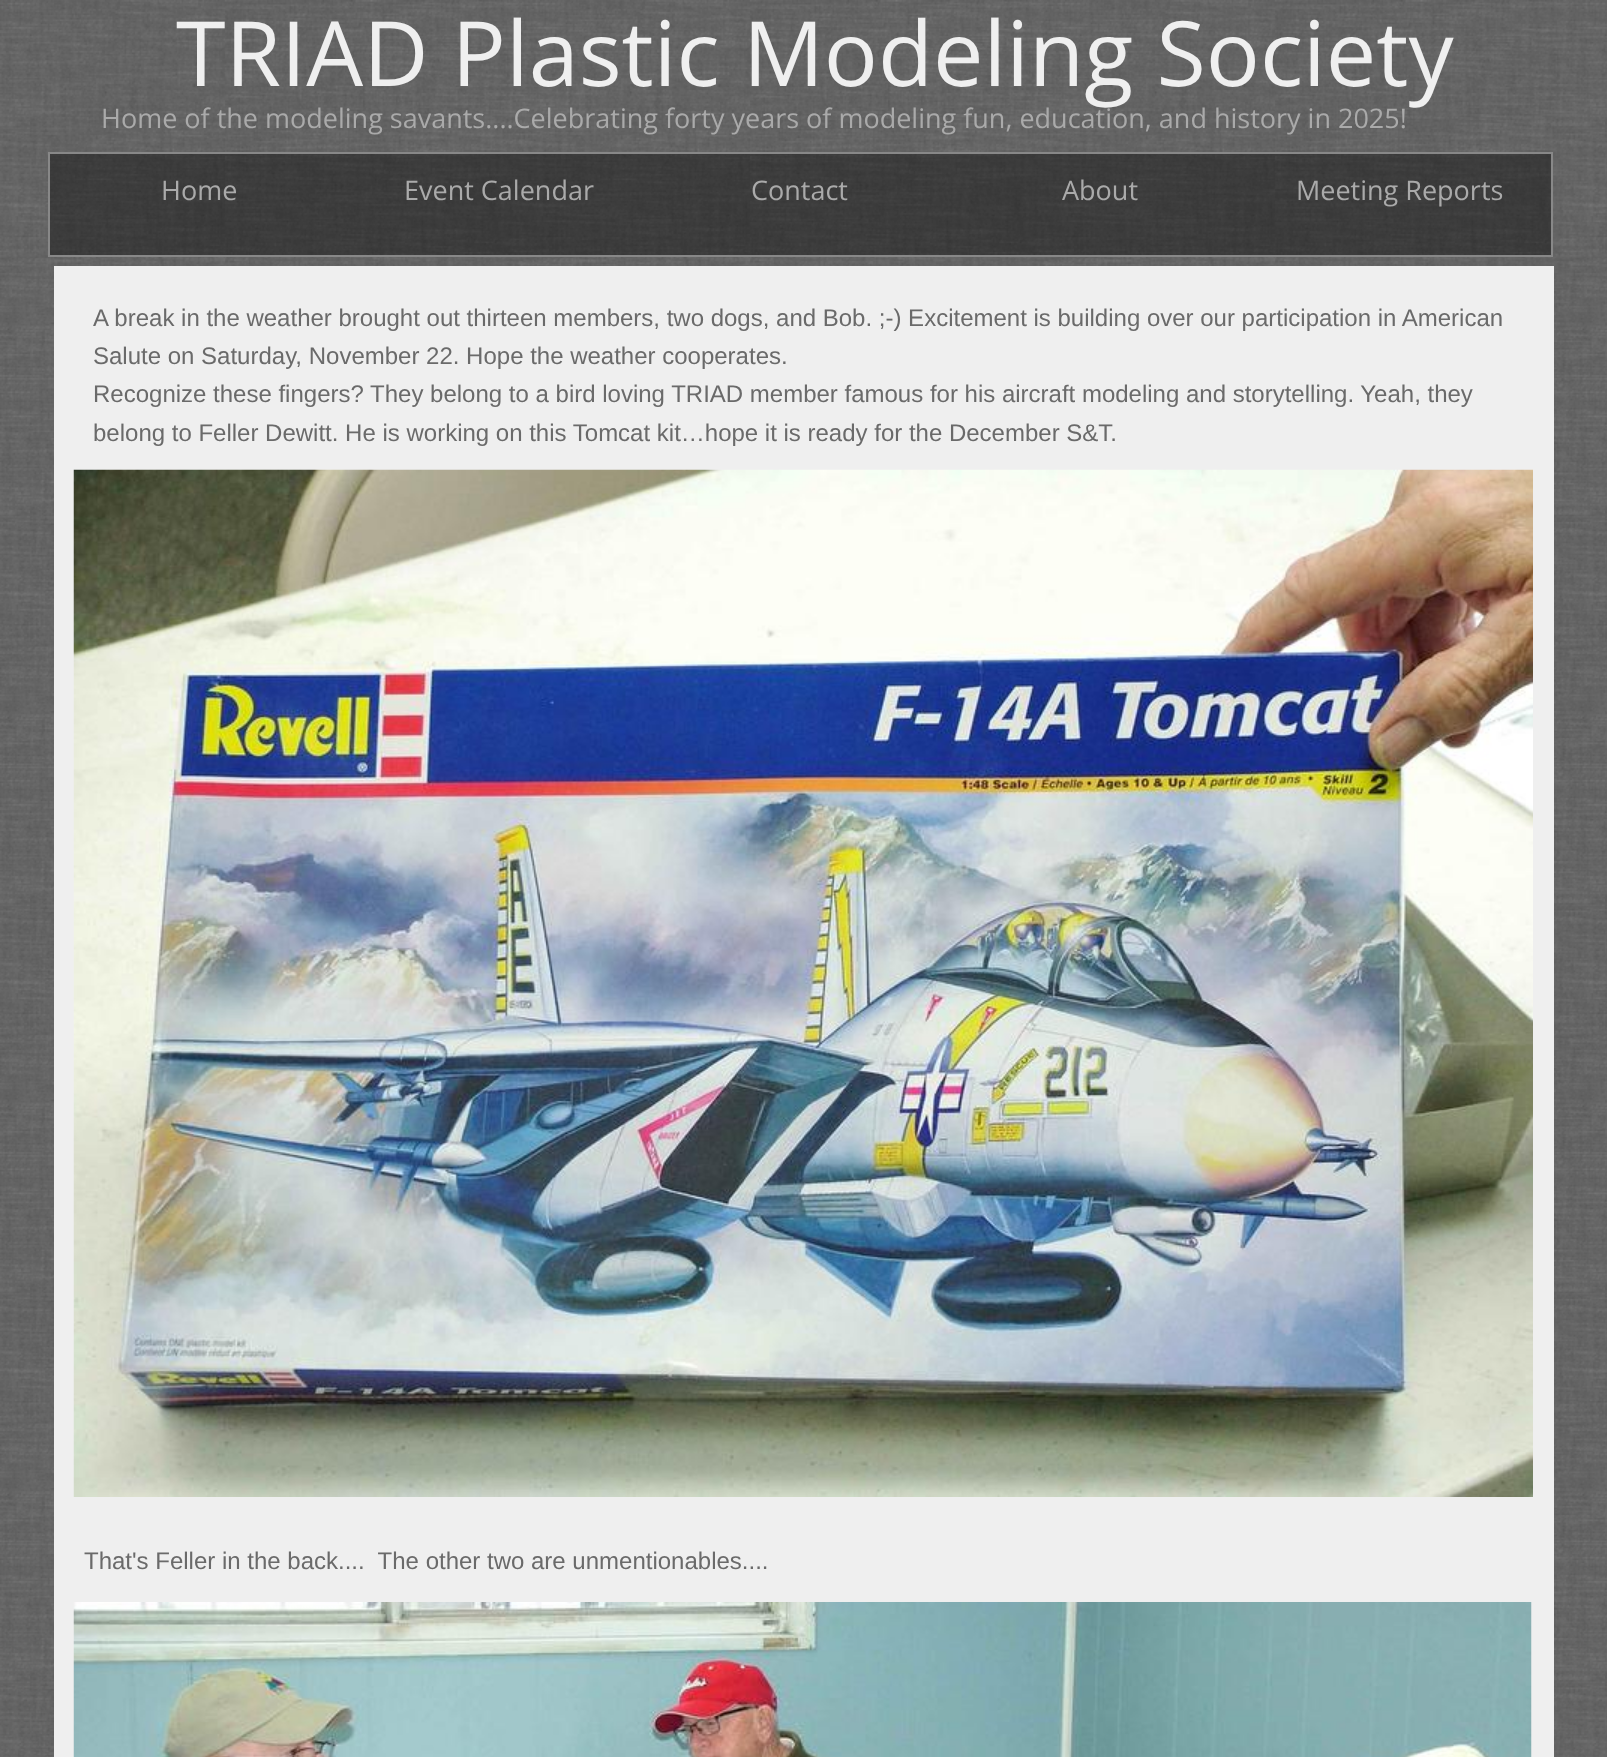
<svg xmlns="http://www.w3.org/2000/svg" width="1607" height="1757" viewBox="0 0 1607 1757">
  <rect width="100%" height="100%" fill="#ffffff"/>
  <image x="0" y="0" width="1607" height="1757" href="img1.png"/>
  <rect x="54" y="266" width="1500" height="1491" fill="#efefef"/>
  <text x="176" y="86" font-family="Open Sans" font-size="90" fill="#efefef">TRIAD Plastic Modeling Society</text>
  <text x="101" y="128" font-family="Open Sans" font-size="27" fill="#aaaaaa">Home of the modeling savants....Celebrating forty years of modeling fun, education, and history in 2025!</text>
  <rect x="49" y="153" width="1503" height="103" fill="#000000" fill-opacity="0.4" stroke="#888888" stroke-width="2"/>
  <text x="161" y="200" font-family="Open Sans" font-size="27" fill="#aaaaaa">Home</text>
  <text x="404" y="200" font-family="Open Sans" font-size="27" fill="#aaaaaa">Event Calendar</text>
  <text x="751" y="200" font-family="Open Sans" font-size="27" fill="#aaaaaa">Contact</text>
  <text x="1062" y="200" font-family="Open Sans" font-size="27" fill="#aaaaaa">About</text>
  <text x="1296" y="200" font-family="Open Sans" font-size="27" fill="#aaaaaa">Meeting Reports</text>
  <text x="93" y="326" font-family="Liberation Sans" font-size="24" fill="#6a6a6a">A break in the weather brought out thirteen members, two dogs, and Bob. ;-) Excitement is building over our participation in American</text>
  <text x="93" y="364" font-family="Liberation Sans" font-size="24" fill="#6a6a6a">Salute on Saturday, November 22. Hope the weather cooperates.</text>
  <text x="93" y="402" font-family="Liberation Sans" font-size="24" fill="#6a6a6a">Recognize these fingers? They belong to a bird loving TRIAD member famous for his aircraft modeling and storytelling. Yeah, they</text>
  <text x="93" y="441" font-family="Liberation Sans" font-size="24" fill="#6a6a6a">belong to Feller Dewitt. He is working on this Tomcat kit…hope it is ready for the December S&amp;T.</text>
  <image x="73" y="469" width="1460" height="1028" href="img2.png"/>
  <text x="84" y="1569" font-family="Liberation Sans" font-size="24" fill="#6a6a6a" xml:space="preserve">That's Feller in the back....  The other two are unmentionables....</text>
  <image x="73" y="1602" width="1459" height="155" href="img3.png"/>
</svg>
